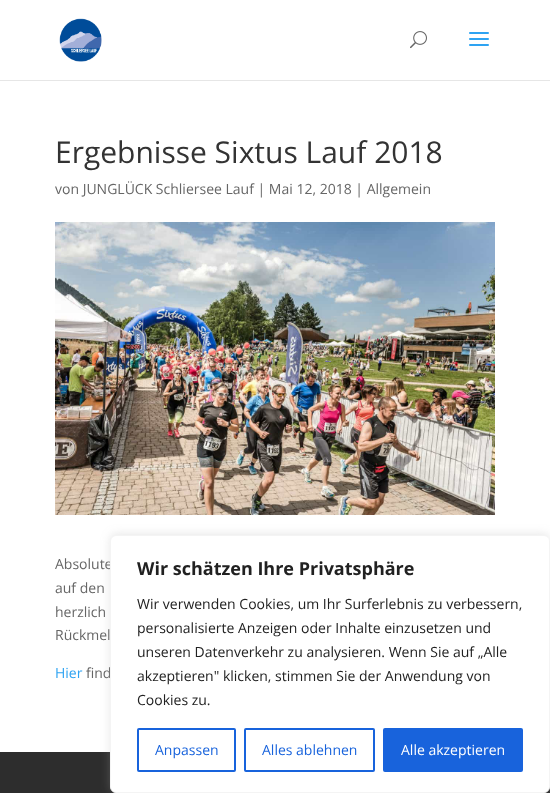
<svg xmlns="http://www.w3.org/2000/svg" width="550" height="793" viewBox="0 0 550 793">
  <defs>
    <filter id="blur1" x="-50%" y="-200%" width="200%" height="500%"><feGaussianBlur stdDeviation="5"/></filter>
  </defs>
  <rect width="100%" height="100%" fill="#ffffff"/>
  <rect x="0" y="80" width="550" height="1" fill="#e6e6e6"/>
  <image x="59" y="18" width="43" height="44" href="img1.png"/>
  <image x="410" y="31" width="17" height="18" href="img2.png"/>
  <image x="469" y="32" width="20" height="14" href="img3.png"/>
  <text x="55" y="163" font-family="Open Sans" font-size="30" fill="#333333">Ergebnisse Sixtus Lauf 2018</text>
  <text x="55" y="194" font-family="Open Sans" font-size="14" fill="#666666">von JUNGLÜCK Schliersee Lauf | Mai 12, 2018 | Allgemein</text>
  <image x="55" y="222" width="440" height="293" href="img4.png"/>
  <text x="55" y="569" font-family="Open Sans" font-size="14" fill="#666666">Absolute</text>
  <text x="55" y="593" font-family="Open Sans" font-size="14" fill="#666666">auf den</text>
  <text x="55" y="617" font-family="Open Sans" font-size="14" fill="#666666">herzlich</text>
  <text x="55" y="640" font-family="Open Sans" font-size="14" fill="#666666">Rückmel</text>
  <text x="55" y="678" font-family="Open Sans" font-size="14" fill="#2ea3f2">Hier</text>
  <text x="86" y="678" font-family="Open Sans" font-size="14" fill="#666666">find</text>
  <rect x="0" y="752" width="550" height="41" fill="#2d2d2d"/>
  <rect x="110" y="534" width="440" height="258" rx="6" fill="#acabab" fill-opacity="0.3" filter="url(#blur1)"/>
  <rect x="110.5" y="535.5" width="439" height="257" rx="5.5" fill="#ffffff" stroke="#f4f4f4"/>
  <text x="137" y="575" font-family="Open Sans" font-size="18" font-weight="bold" fill="#212121">Wir schätzen Ihre Privatsphäre</text>
  <text x="137" y="609" font-family="Open Sans" font-size="14" fill="#212121">Wir verwenden Cookies, um Ihr Surferlebnis zu verbessern,</text>
  <text x="137" y="633" font-family="Open Sans" font-size="14" fill="#212121">personalisierte Anzeigen oder Inhalte einzusetzen und</text>
  <text x="137" y="657" font-family="Open Sans" font-size="14" fill="#212121">unseren Datenverkehr zu analysieren. Wenn Sie auf „Alle</text>
  <text x="137" y="681" font-family="Open Sans" font-size="14" fill="#212121">akzeptieren" klicken, stimmen Sie der Anwendung von</text>
  <text x="137" y="705" font-family="Open Sans" font-size="14" fill="#212121">Cookies zu.</text>
  <rect x="138" y="729" width="97" height="42" rx="1" fill="none" stroke="#1863dc" stroke-width="2"/>
  <text x="155" y="755" font-family="Open Sans" font-size="14" fill="#1863dc">Anpassen</text>
  <rect x="245" y="729" width="129" height="42" rx="1" fill="none" stroke="#1863dc" stroke-width="2"/>
  <text x="262" y="755" font-family="Open Sans" font-size="14" fill="#1863dc">Alles ablehnen</text>
  <rect x="384" y="729" width="138" height="42" rx="1" fill="#1863dc" stroke="#1863dc" stroke-width="2"/>
  <text x="401" y="755" font-family="Open Sans" font-size="14" fill="#ffffff">Alle akzeptieren</text>
</svg>
